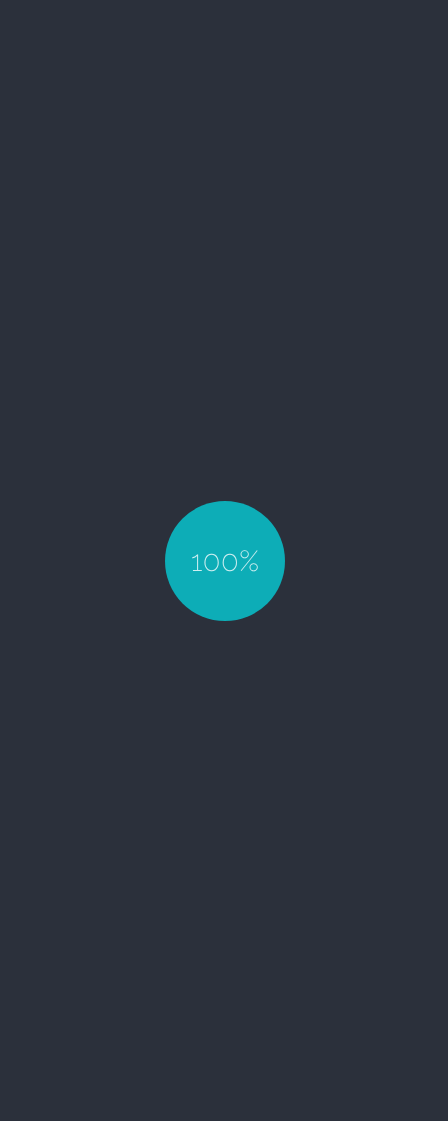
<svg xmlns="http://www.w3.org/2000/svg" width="448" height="1121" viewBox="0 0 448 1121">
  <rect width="100%" height="100%" fill="#2b303b"/>
  <circle cx="225" cy="561" r="60" fill="#0dadb7"/>
  <text x="191" y="571" font-family="Raleway" font-size="29" font-weight="200" letter-spacing="0.5" fill="#cfeff1">100%</text>
</svg>
